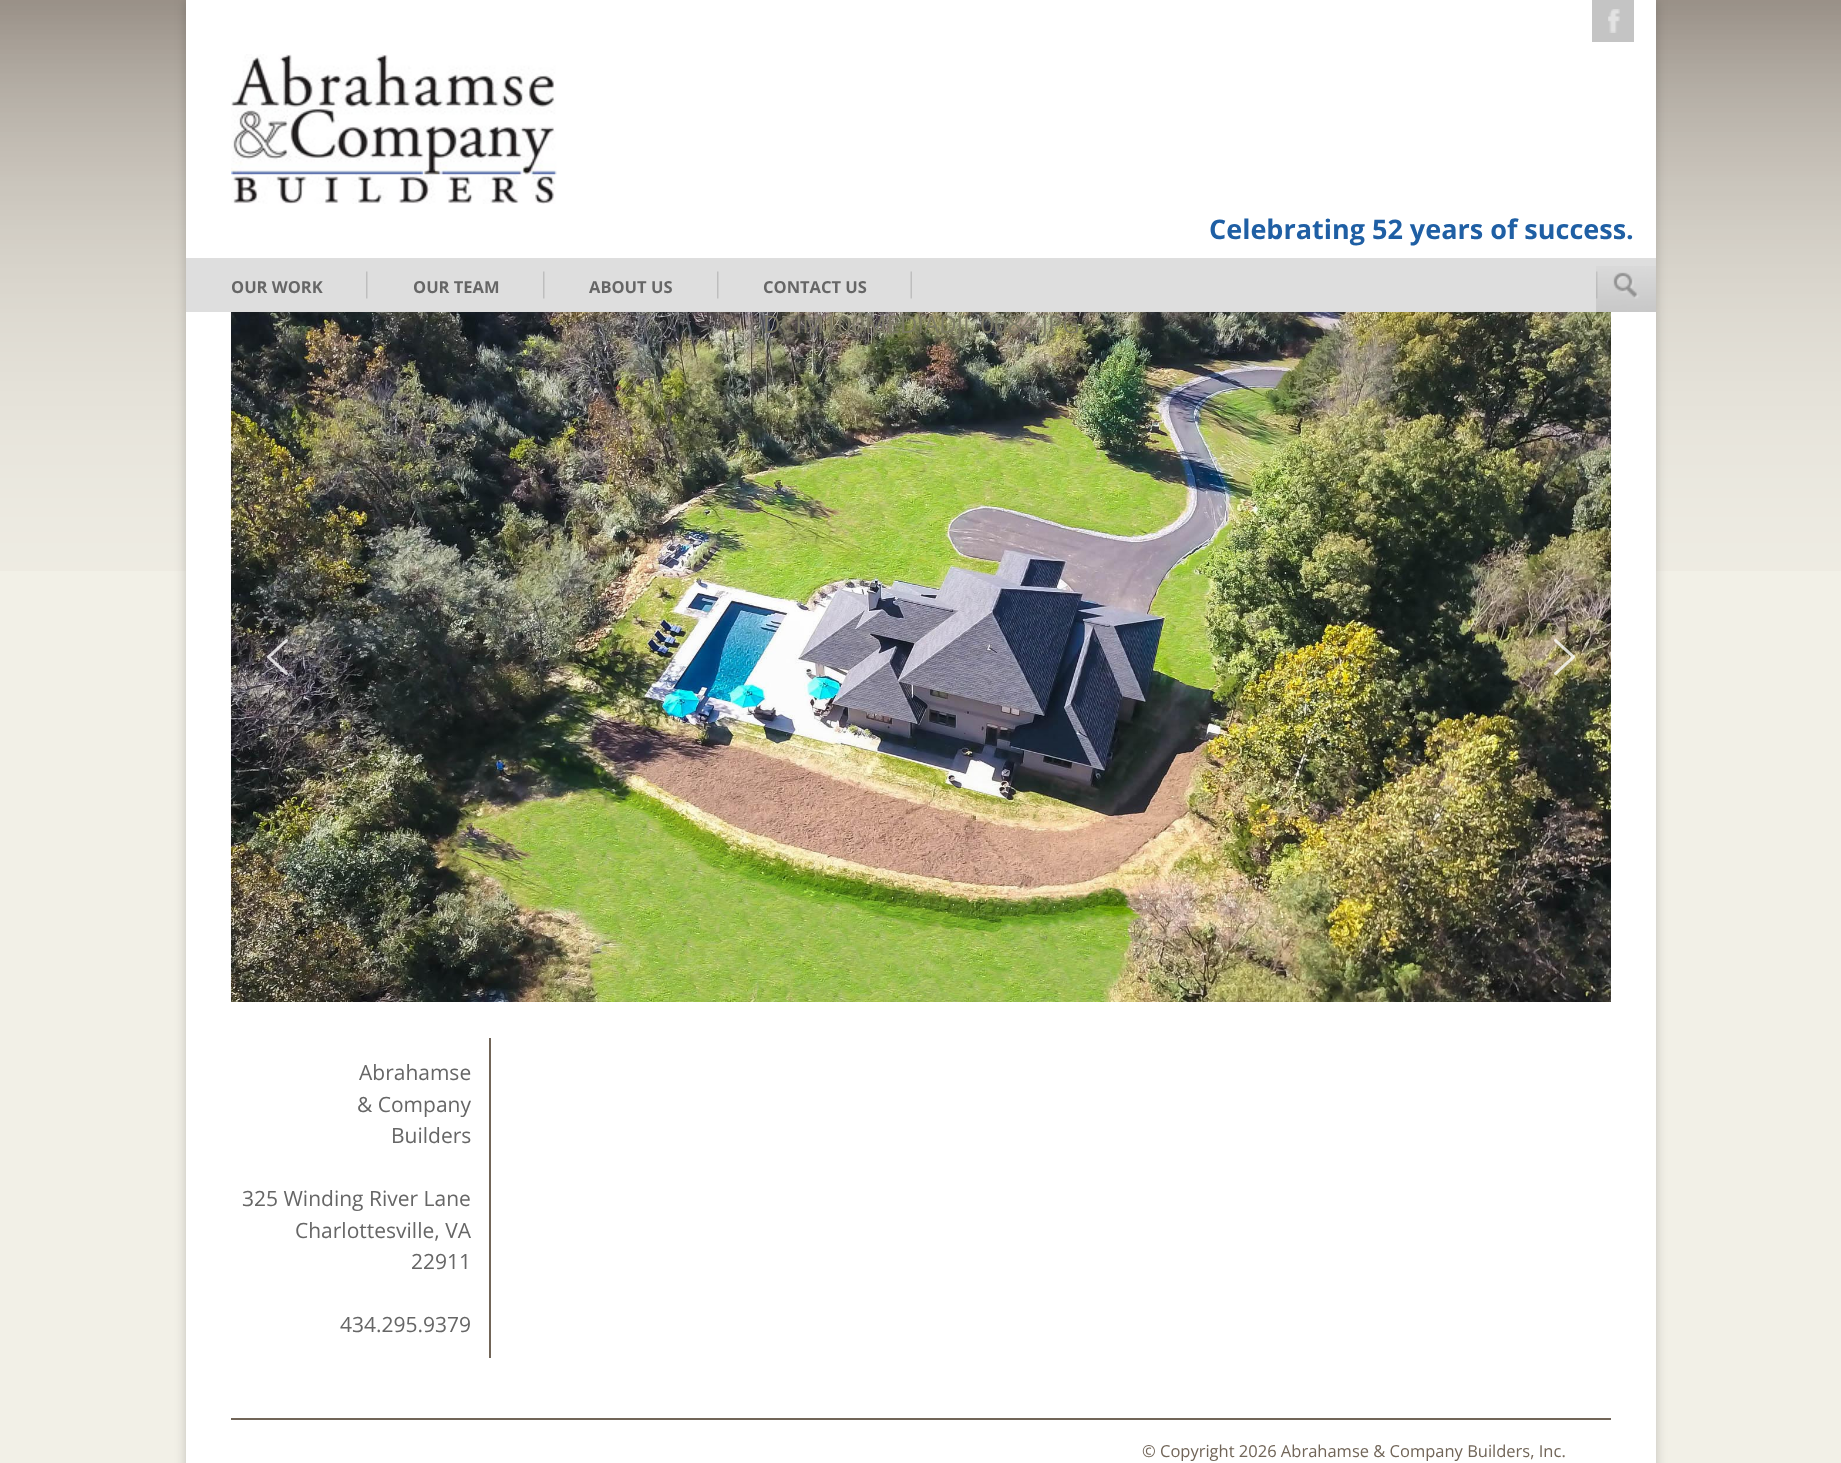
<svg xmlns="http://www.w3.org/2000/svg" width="1841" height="1463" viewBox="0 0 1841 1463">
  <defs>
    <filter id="blur1" x="-50%" y="-200%" width="200%" height="500%"><feGaussianBlur stdDeviation="6"/></filter>
  </defs>
  <rect width="100%" height="100%" fill="#f2f0e7"/>
  <image x="0" y="0" width="1841" height="571" href="img1.png"/>
  <rect x="186" y="0" width="1470" height="312" fill="#000000" fill-opacity="0.2" filter="url(#blur1)"/>
  <rect x="186" y="0" width="1470" height="258" fill="#ffffff"/>
  <rect x="1592" y="0" width="42" height="42" fill="#c4c4c4"/>
  <image x="1608" y="9" width="12" height="24" href="img2.png"/>
  <image x="231" y="54" width="326" height="150" href="img3.png"/>
  <text x="1209" y="239" font-family="Open Sans" font-size="27" font-weight="bold" fill="#1f5fa4">Celebrating 52 years of success.</text>
  <rect x="186" y="312" width="1470" height="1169" fill="#000000" fill-opacity="0.2" filter="url(#blur1)"/>
  <rect x="186" y="258" width="1470" height="54" fill="#dedede"/>
  <image x="366" y="271" width="2" height="28" href="img4.png"/>
  <text x="231" y="293" font-family="Open Sans" font-size="16.5" font-weight="bold" fill="#666666">OUR WORK</text>
  <image x="543" y="271" width="2" height="28" href="img4.png"/>
  <text x="413" y="293" font-family="Open Sans" font-size="16.5" font-weight="bold" fill="#666666">OUR TEAM</text>
  <image x="717" y="271" width="2" height="28" href="img4.png"/>
  <text x="589" y="293" font-family="Open Sans" font-size="16.5" font-weight="bold" fill="#666666">ABOUT US</text>
  <image x="910" y="271" width="2" height="28" href="img5.png"/>
  <text x="763" y="293" font-family="Open Sans" font-size="16.5" font-weight="bold" fill="#666666">CONTACT US</text>
  <image x="1596" y="266" width="60" height="46" href="img6.png"/>
  <rect x="186" y="312" width="1470" height="1151" fill="#ffffff"/>
  <image x="231" y="312" width="1380" height="690" href="img7.png"/>
  <text x="763" y="333" font-family="Open Sans" font-size="24" fill="#7c7a66">DCIM100MEDIADJI_0084.JPG</text>
  <image x="267" y="639" width="21" height="36" href="img8.png"/>
  <image x="1554" y="639" width="21" height="36" href="img9.png"/>
  <rect x="489" y="1038" width="2" height="320" fill="#716558"/>
  <text x="359" y="1080" font-family="Open Sans" font-size="21" fill="#666666">Abrahamse</text>
  <text x="357" y="1112" font-family="Open Sans" font-size="21" fill="#666666">&amp; Company</text>
  <text x="391" y="1143" font-family="Open Sans" font-size="21" fill="#666666">Builders</text>
  <text x="242" y="1206" font-family="Open Sans" font-size="21" fill="#666666">325 Winding River Lane</text>
  <text x="295" y="1238" font-family="Open Sans" font-size="21" fill="#666666">Charlottesville, VA</text>
  <text x="411" y="1269" font-family="Open Sans" font-size="21" fill="#666666">22911</text>
  <text x="340" y="1332" font-family="Open Sans" font-size="21" fill="#666666">434.295.9379</text>
  <rect x="231" y="1418" width="1380" height="2" fill="#716558"/>
  <text x="1142" y="1457" font-family="Open Sans" font-size="16.5" fill="#716558">© Copyright 2026 Abrahamse &amp; Company Builders, Inc.</text>
</svg>
